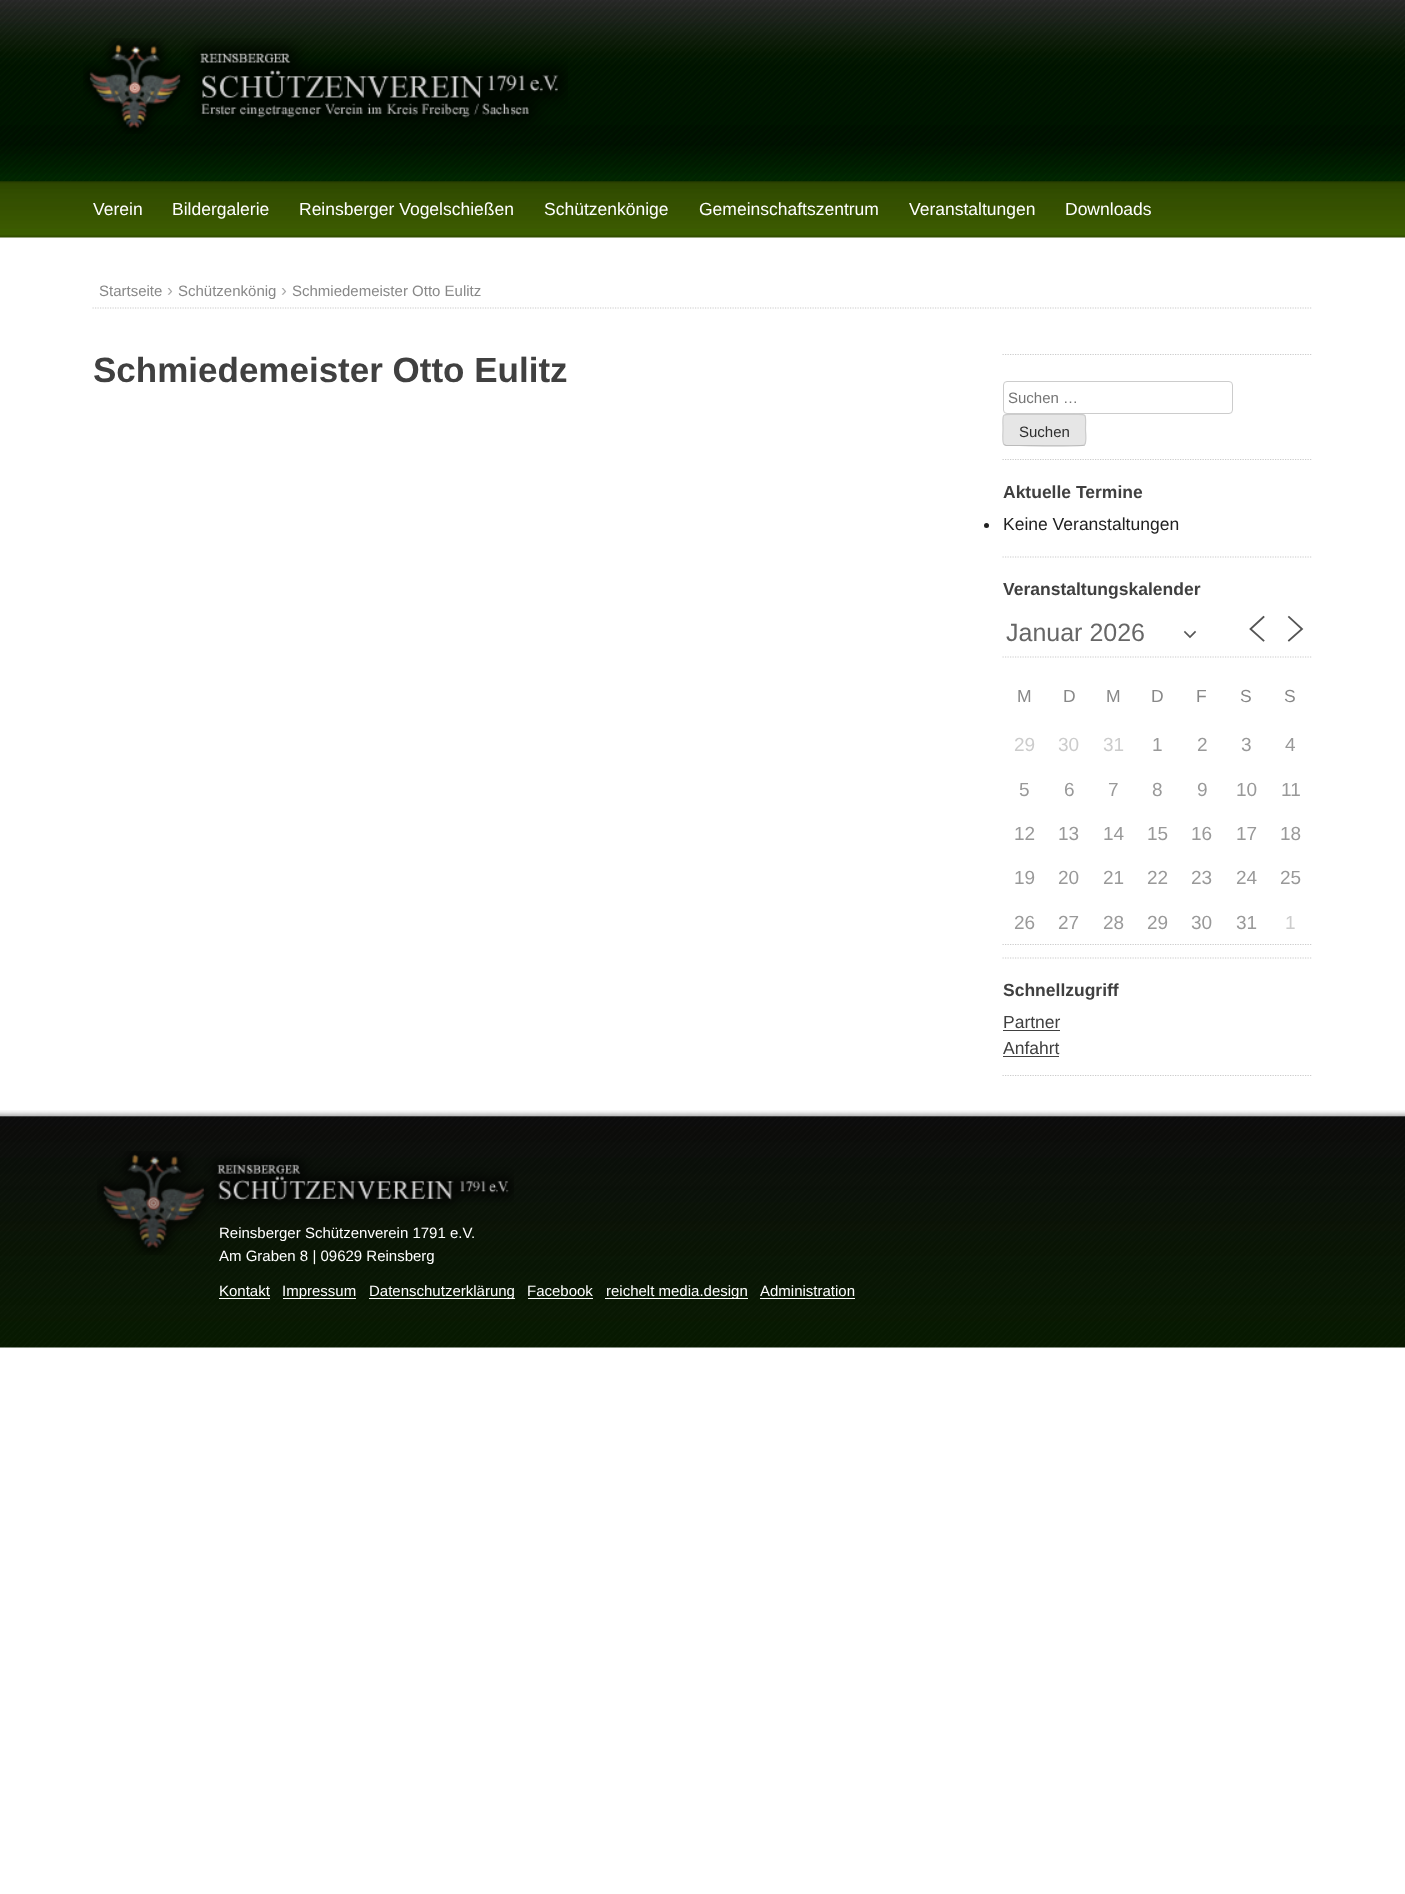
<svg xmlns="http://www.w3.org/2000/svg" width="1405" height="1894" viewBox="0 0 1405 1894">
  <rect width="100%" height="100%" fill="#ffffff"/>
  <image x="0" y="0" width="1405" height="182" href="img1.png"/>
  <image x="83" y="38" width="485" height="96" href="img2.png"/>
  <image x="0" y="181" width="1405" height="57" href="img3.png"/>
  <text x="93" y="215" font-family="Liberation Sans" font-size="17.5" fill="#ffffff">Verein</text>
  <text x="172" y="215" font-family="Liberation Sans" font-size="17.5" fill="#ffffff">Bildergalerie</text>
  <text x="299" y="215" font-family="Liberation Sans" font-size="17.5" fill="#ffffff">Reinsberger Vogelschießen</text>
  <text x="544" y="215" font-family="Liberation Sans" font-size="17.5" fill="#ffffff">Schützenkönige</text>
  <text x="699" y="215" font-family="Liberation Sans" font-size="17.5" fill="#ffffff">Gemeinschaftszentrum</text>
  <text x="909" y="215" font-family="Liberation Sans" font-size="17.5" fill="#ffffff">Veranstaltungen</text>
  <text x="1065" y="215" font-family="Liberation Sans" font-size="17.5" fill="#ffffff">Downloads</text>
  <path d="M92.5 308H1312.5" fill="none" stroke="#cccccc" stroke-width="1.2" stroke-dasharray="1.25 1.25"/>
  <text x="99" y="296" font-family="Liberation Sans" font-size="15" fill="#888888">Startseite</text>
  <text x="167" y="296" font-family="Liberation Sans" font-size="17.5" fill="#aaaaaa">›</text>
  <text x="178" y="296" font-family="Liberation Sans" font-size="15" fill="#888888">Schützenkönig</text>
  <text x="281" y="296" font-family="Liberation Sans" font-size="17.5" fill="#aaaaaa">›</text>
  <text x="292" y="296" font-family="Liberation Sans" font-size="15" fill="#888888">Schmiedemeister Otto Eulitz</text>
  <text x="93" y="382" font-family="Liberation Sans" font-size="35" font-weight="bold" fill="#404040">Schmiedemeister Otto Eulitz</text>
  <path d="M1002.5 354.5H1312.5" fill="none" stroke="#cccccc" stroke-width="1.2" stroke-dasharray="1.25 1.25"/>
  <path d="M1002.5 459.5H1312.5" fill="none" stroke="#cccccc" stroke-width="1.2" stroke-dasharray="1.25 1.25"/>
  <rect x="1003.5" y="381.5" width="229" height="32" rx="3.5" fill="none" stroke="#cccccc"/>
  <text x="1008" y="403" font-family="Liberation Sans" font-size="15" fill="#757575">Suchen …</text>
  <rect x="1003" y="414" width="83" height="32" rx="4" fill="#e6e6e6"/>
  <path d="M1084.5 444.5V445C1082.5 446.5 1026.5 445.5 1019 445.5H1006L1004 444.5" fill="none" stroke="#bbbbbb" stroke-width="1.2"/>
  <path d="M1004 444.5C1002 442.5 1003 433 1003 430C1003 411.5 1000 414.5 1019 414.5H1070C1088.5 414.5 1085.5 411.5 1085.5 430C1085.5 433 1087 442.5 1084.5 444.5" fill="none" stroke="#cccccc" stroke-width="1.2"/>
  <text x="1019" y="437" font-family="Liberation Sans" font-size="15" fill="#2e2e2e">Suchen</text>
  <path d="M1002.5 557H1312.5" fill="none" stroke="#cccccc" stroke-width="1.2" stroke-dasharray="1.25 1.25"/>
  <text x="1003" y="498" font-family="Liberation Sans" font-size="17.5" font-weight="bold" fill="#404040">Aktuelle Termine</text>
  <circle cx="986.5" cy="525.5" r="2.5" fill="#212121"/>
  <text x="1003" y="530" font-family="Liberation Sans" font-size="17.5" fill="#212121">Keine Veranstaltungen</text>
  <path d="M1002.5 958H1312.5" fill="none" stroke="#cccccc" stroke-width="1.2" stroke-dasharray="1.25 1.25"/>
  <text x="1003" y="595" font-family="Liberation Sans" font-size="17.5" font-weight="bold" fill="#404040">Veranstaltungskalender</text>
  <path d="M1002.5 657H1312.5" fill="none" stroke="#cccccc" stroke-width="1.2" stroke-dasharray="1.25 1.25"/>
  <path d="M1185 632L1190 637L1195 632" fill="none" stroke="#555555" stroke-width="1.7" stroke-linecap="square"/>
  <text x="1006" y="641" font-family="Liberation Sans" font-size="25" fill="#666666">Januar 2026</text>
  <path d="M1263.5 640.5L1250.5 629L1263.5 617M1289 640.5L1302 629L1289 617" fill="none" stroke="#555555" stroke-width="1.8" stroke-linecap="square"/>
  <text x="1017" y="702" font-family="Liberation Sans" font-size="17.5" fill="#888888">M</text>
  <text x="1063" y="702" font-family="Liberation Sans" font-size="17.5" fill="#888888">D</text>
  <text x="1106" y="702" font-family="Liberation Sans" font-size="17.5" fill="#888888">M</text>
  <text x="1151" y="702" font-family="Liberation Sans" font-size="17.5" fill="#888888">D</text>
  <text x="1196" y="702" font-family="Liberation Sans" font-size="17.5" fill="#888888">F</text>
  <text x="1240" y="702" font-family="Liberation Sans" font-size="17.5" fill="#888888">S</text>
  <text x="1284" y="702" font-family="Liberation Sans" font-size="17.5" fill="#888888">S</text>
  <text x="1014" y="751" font-family="Liberation Sans" font-size="19" fill="#cccccc">29</text>
  <text x="1058" y="751" font-family="Liberation Sans" font-size="19" fill="#cccccc">30</text>
  <text x="1103" y="751" font-family="Liberation Sans" font-size="19" fill="#cccccc">31</text>
  <text x="1152" y="751" font-family="Liberation Sans" font-size="19" fill="#999999">1</text>
  <text x="1197" y="751" font-family="Liberation Sans" font-size="19" fill="#999999">2</text>
  <text x="1241" y="751" font-family="Liberation Sans" font-size="19" fill="#999999">3</text>
  <text x="1285" y="751" font-family="Liberation Sans" font-size="19" fill="#999999">4</text>
  <text x="1019" y="796" font-family="Liberation Sans" font-size="19" fill="#999999">5</text>
  <text x="1064" y="796" font-family="Liberation Sans" font-size="19" fill="#999999">6</text>
  <text x="1108" y="796" font-family="Liberation Sans" font-size="19" fill="#999999">7</text>
  <text x="1152" y="796" font-family="Liberation Sans" font-size="19" fill="#999999">8</text>
  <text x="1197" y="796" font-family="Liberation Sans" font-size="19" fill="#999999">9</text>
  <text x="1236" y="796" font-family="Liberation Sans" font-size="19" fill="#999999">10</text>
  <text x="1281" y="796" font-family="Liberation Sans" font-size="19" fill="#999999">11</text>
  <text x="1014" y="840" font-family="Liberation Sans" font-size="19" fill="#999999">12</text>
  <text x="1058" y="840" font-family="Liberation Sans" font-size="19" fill="#999999">13</text>
  <text x="1103" y="840" font-family="Liberation Sans" font-size="19" fill="#999999">14</text>
  <text x="1147" y="840" font-family="Liberation Sans" font-size="19" fill="#999999">15</text>
  <text x="1191" y="840" font-family="Liberation Sans" font-size="19" fill="#999999">16</text>
  <text x="1236" y="840" font-family="Liberation Sans" font-size="19" fill="#999999">17</text>
  <text x="1280" y="840" font-family="Liberation Sans" font-size="19" fill="#999999">18</text>
  <text x="1014" y="884" font-family="Liberation Sans" font-size="19" fill="#999999">19</text>
  <text x="1058" y="884" font-family="Liberation Sans" font-size="19" fill="#999999">20</text>
  <text x="1103" y="884" font-family="Liberation Sans" font-size="19" fill="#999999">21</text>
  <text x="1147" y="884" font-family="Liberation Sans" font-size="19" fill="#999999">22</text>
  <text x="1191" y="884" font-family="Liberation Sans" font-size="19" fill="#999999">23</text>
  <text x="1236" y="884" font-family="Liberation Sans" font-size="19" fill="#999999">24</text>
  <text x="1280" y="884" font-family="Liberation Sans" font-size="19" fill="#999999">25</text>
  <text x="1014" y="929" font-family="Liberation Sans" font-size="19" fill="#999999">26</text>
  <text x="1058" y="929" font-family="Liberation Sans" font-size="19" fill="#999999">27</text>
  <text x="1103" y="929" font-family="Liberation Sans" font-size="19" fill="#999999">28</text>
  <text x="1147" y="929" font-family="Liberation Sans" font-size="19" fill="#999999">29</text>
  <text x="1191" y="929" font-family="Liberation Sans" font-size="19" fill="#999999">30</text>
  <text x="1236" y="929" font-family="Liberation Sans" font-size="19" fill="#999999">31</text>
  <text x="1285" y="929" font-family="Liberation Sans" font-size="19" fill="#cccccc">1</text>
  <path d="M1002.5 944.5H1312.5" fill="none" stroke="#cccccc" stroke-width="1.2" stroke-dasharray="1.25 1.25"/>
  <path d="M1002.5 1075.5H1312.5" fill="none" stroke="#cccccc" stroke-width="1.2" stroke-dasharray="1.25 1.25"/>
  <text x="1003" y="996" font-family="Liberation Sans" font-size="17.5" font-weight="bold" fill="#404040">Schnellzugriff</text>
  <text x="1003" y="1028" font-family="Liberation Sans" font-size="17.5" fill="#404040">Partner</text>
  <rect x="1003" y="1030" width="57" height="1" fill="#404040"/>
  <text x="1003" y="1054" font-family="Liberation Sans" font-size="17.5" fill="#404040">Anfahrt</text>
  <rect x="1003" y="1056" width="56" height="1" fill="#404040"/>
  <image x="0" y="1110" width="1405" height="238" href="img4.png"/>
  <image x="97" y="1151" width="417" height="104" href="img5.png"/>
  <text x="219" y="1238" font-family="Liberation Sans" font-size="15" fill="#ffffff">Reinsberger Schützenverein 1791 e.V.</text>
  <text x="219" y="1261" font-family="Liberation Sans" font-size="15" fill="#ffffff">Am Graben 8 | 09629 Reinsberg</text>
  <text x="219" y="1296" font-family="Liberation Sans" font-size="15" fill="#ffffff">Kontakt</text>
  <rect x="219" y="1298" width="51" height="1" fill="#ffffff"/>
  <rect x="283" y="1298" width="73" height="1" fill="#ffffff"/>
  <text x="282" y="1296" font-family="Liberation Sans" font-size="15" fill="#ffffff">Impressum</text>
  <rect x="369" y="1298" width="146" height="1" fill="#ffffff"/>
  <text x="369" y="1296" font-family="Liberation Sans" font-size="15" fill="#ffffff">Datenschutzerklärung</text>
  <text x="527" y="1296" font-family="Liberation Sans" font-size="15" fill="#ffffff">Facebook</text>
  <rect x="528" y="1298" width="65" height="1" fill="#ffffff"/>
  <rect x="605" y="1298" width="143" height="1" fill="#ffffff"/>
  <text x="606" y="1296" font-family="Liberation Sans" font-size="15" fill="#ffffff">reichelt media.design</text>
  <text x="760" y="1296" font-family="Liberation Sans" font-size="15" fill="#ffffff">Administration</text>
  <rect x="760" y="1298" width="95" height="1" fill="#ffffff"/>
</svg>
